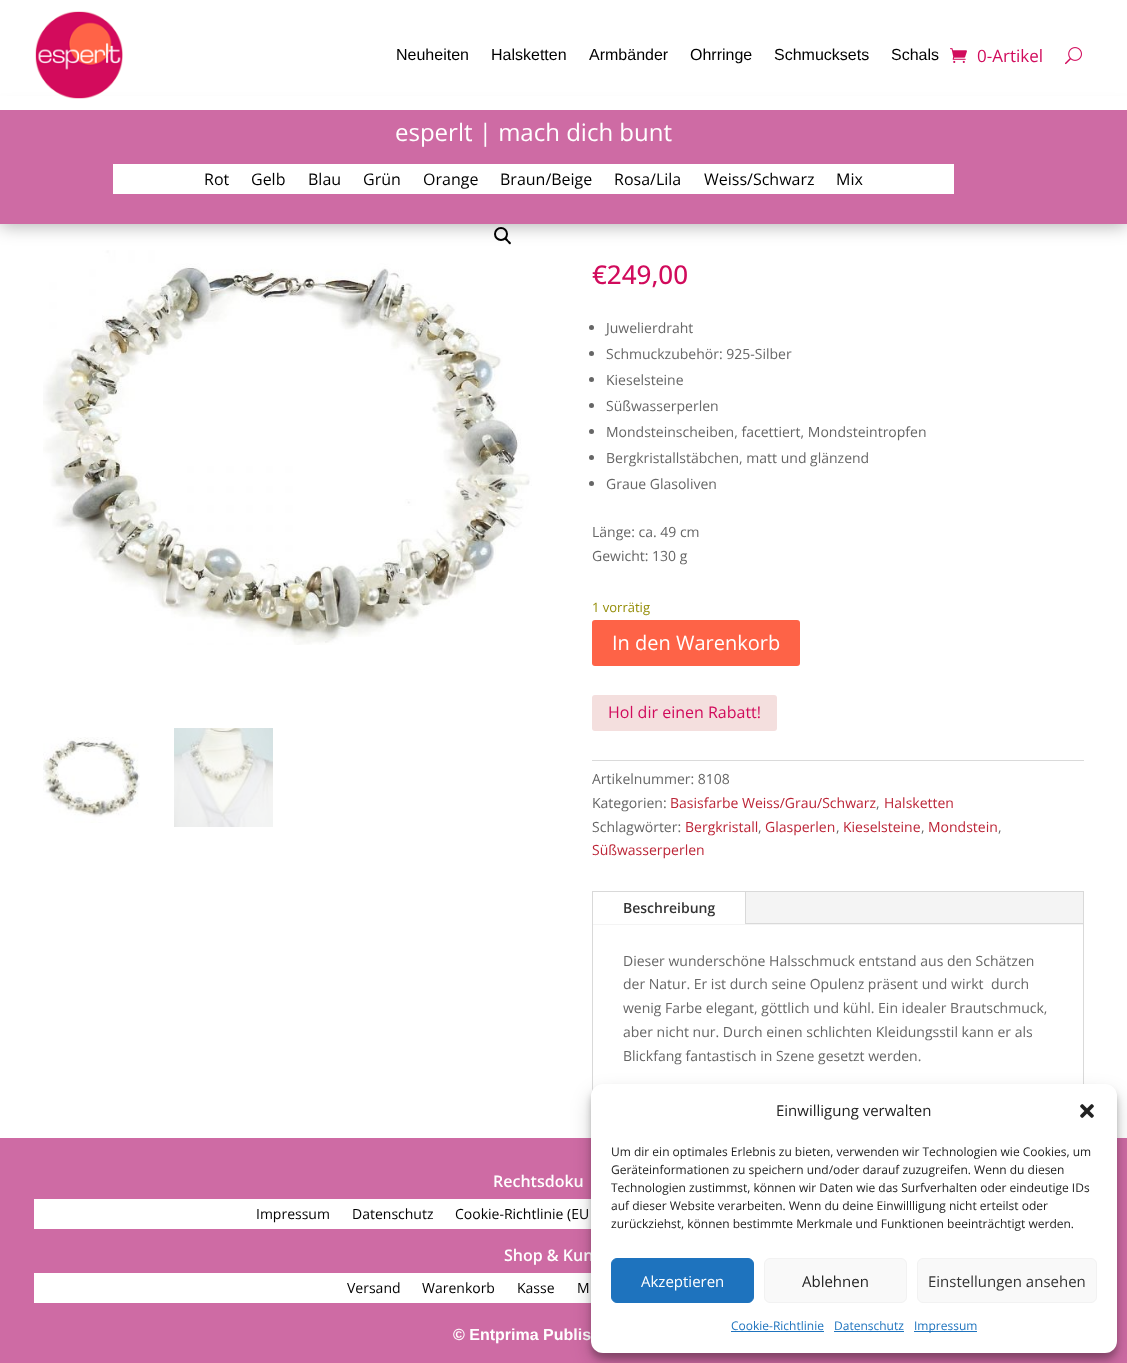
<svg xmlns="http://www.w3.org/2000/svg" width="1127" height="1363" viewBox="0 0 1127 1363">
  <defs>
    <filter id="blur1" x="-50%" y="-200%" width="200%" height="500%"><feGaussianBlur stdDeviation="9"/></filter>
    <filter id="blur2" x="-50%" y="-200%" width="200%" height="500%"><feGaussianBlur stdDeviation="3"/></filter>
    <filter id="blur3" x="-50%" y="-200%" width="200%" height="500%"><feGaussianBlur stdDeviation="10"/></filter>
  </defs>
  <rect width="100%" height="100%" fill="#ffffff"/>
  <circle cx="501" cy="234" r="6" fill="none" stroke="#000000" stroke-width="2"/>
  <path d="M505 238C506 237 508 239.5 508.5 240.5C509 241 512 242.5 510.5 244C509.5 245 508 242.5 507 241.5C506.5 241 504 239.5 505 238Z" fill="#000000"/>
  <image x="43" y="250" width="489" height="395" href="img4.png"/>
  <rect x="0" y="112" width="1127" height="114" fill="#000000" fill-opacity="0.3" filter="url(#blur1)"/>
  <rect x="0" y="96" width="1127" height="14" fill="#ffffff"/>
  <image x="35" y="11" width="88" height="88" href="img1.png"/>
  <text x="396" y="60" font-family="Liberation Sans" font-size="16" fill="#000000">Neuheiten</text>
  <text x="491" y="60" font-family="Liberation Sans" font-size="16" fill="#000000">Halsketten</text>
  <text x="589" y="60" font-family="Liberation Sans" font-size="16" fill="#000000">Armbänder</text>
  <text x="690" y="60" font-family="Liberation Sans" font-size="16" fill="#000000">Ohrringe</text>
  <text x="774" y="60" font-family="Liberation Sans" font-size="16" fill="#000000">Schmucksets</text>
  <text x="891" y="60" font-family="Liberation Sans" font-size="16" fill="#000000">Schals</text>
  <image x="950" y="48" width="17" height="15" href="img2.png"/>
  <text x="977" y="62" font-family="Open Sans" font-size="17" fill="#d10b5c">0-Artikel</text>
  <image x="1065" y="47" width="17" height="18" href="img3.png"/>
  <rect x="0" y="110" width="1127" height="114" fill="#ce6ba4"/>
  <text x="395" y="141" font-family="Open Sans" font-size="24" fill="#ffffff">esperlt | mach dich bunt</text>
  <rect x="113" y="164" width="841" height="30" fill="#ffffff"/>
  <text x="204" y="185" font-family="Open Sans" font-size="16" fill="#000000">Rot</text>
  <text x="251" y="185" font-family="Open Sans" font-size="16" fill="#000000">Gelb</text>
  <text x="308" y="185" font-family="Open Sans" font-size="16" fill="#000000">Blau</text>
  <text x="363" y="185" font-family="Open Sans" font-size="16" fill="#000000">Grün</text>
  <text x="423" y="185" font-family="Open Sans" font-size="16" fill="#000000">Orange</text>
  <text x="500" y="185" font-family="Open Sans" font-size="16" fill="#000000">Braun/Beige</text>
  <text x="614" y="185" font-family="Open Sans" font-size="16" fill="#000000">Rosa/Lila</text>
  <text x="704" y="185" font-family="Open Sans" font-size="16" fill="#000000">Weiss/Schwarz</text>
  <text x="836" y="185" font-family="Open Sans" font-size="16" fill="#000000">Mix</text>
  <image x="43" y="737" width="97" height="86" href="img5.png"/>
  <image x="174" y="728" width="99" height="99" href="img6.png"/>
  <text x="592" y="284" font-family="Open Sans" font-size="26" font-weight="500" fill="#d10b5c">€249,00</text>
  <circle cx="591.5" cy="327.5" r="2.5" fill="#666666"/>
  <text x="606" y="333" font-family="Open Sans" font-size="14" fill="#666666">Juwelierdraht</text>
  <circle cx="591.5" cy="353.5" r="2.5" fill="#666666"/>
  <text x="606" y="359" font-family="Open Sans" font-size="14" fill="#666666">Schmuckzubehör: 925-Silber</text>
  <circle cx="591.5" cy="379.5" r="2.5" fill="#666666"/>
  <text x="606" y="385" font-family="Open Sans" font-size="14" fill="#666666">Kieselsteine</text>
  <circle cx="591.5" cy="405.5" r="2.5" fill="#666666"/>
  <text x="606" y="411" font-family="Open Sans" font-size="14" fill="#666666">Süßwasserperlen</text>
  <circle cx="591.5" cy="431.5" r="2.5" fill="#666666"/>
  <text x="606" y="437" font-family="Open Sans" font-size="14" fill="#666666">Mondsteinscheiben, facettiert, Mondsteintropfen</text>
  <circle cx="591.5" cy="457.5" r="2.5" fill="#666666"/>
  <text x="606" y="463" font-family="Open Sans" font-size="14" fill="#666666">Bergkristallstäbchen, matt und glänzend</text>
  <circle cx="591.5" cy="483.5" r="2.5" fill="#666666"/>
  <text x="606" y="489" font-family="Open Sans" font-size="14" fill="#666666">Graue Glasoliven</text>
  <text x="592" y="537" font-family="Open Sans" font-size="14" fill="#666666">Länge: ca. 49 cm</text>
  <text x="592" y="561" font-family="Open Sans" font-size="14" fill="#666666">Gewicht: 130 g</text>
  <text x="592" y="612" font-family="Open Sans" font-size="13" fill="#958e09">1 vorrätig</text>
  <rect x="592" y="620" width="208" height="46" rx="3" fill="#fe6347"/>
  <text x="612" y="650" font-family="Open Sans" font-size="20" fill="#ffffff">In den Warenkorb</text>
  <rect x="592" y="695" width="185" height="36" rx="3" fill="#f4dfde"/>
  <text x="608" y="718" font-family="Open Sans" font-size="16" fill="#d10b5c">Hol dir einen Rabatt!</text>
  <rect x="592" y="760" width="492" height="1" fill="#dadada"/>
  <text x="592" y="784" font-family="Open Sans" font-size="14" fill="#666666">Artikelnummer: 8108</text>
  <text x="592" y="808" font-family="Open Sans" font-size="14" fill="#666666">Kategorien:</text>
  <text x="670" y="808" font-family="Open Sans" font-size="14" fill="#bc2537">Basisfarbe Weiss/Grau/Schwarz</text>
  <text x="876" y="808" font-family="Open Sans" font-size="14" fill="#666666">,</text>
  <text x="884" y="808" font-family="Open Sans" font-size="14" fill="#bc2537">Halsketten</text>
  <text x="592" y="832" font-family="Open Sans" font-size="14" fill="#666666">Schlagwörter:</text>
  <text x="685" y="832" font-family="Open Sans" font-size="14" fill="#bc2537">Bergkristall</text>
  <text x="758" y="832" font-family="Open Sans" font-size="14" fill="#666666">,</text>
  <text x="765" y="832" font-family="Open Sans" font-size="14" fill="#bc2537">Glasperlen</text>
  <text x="836" y="832" font-family="Open Sans" font-size="14" fill="#666666">,</text>
  <text x="843" y="832" font-family="Open Sans" font-size="14" fill="#bc2537">Kieselsteine</text>
  <text x="921" y="832" font-family="Open Sans" font-size="14" fill="#666666">,</text>
  <text x="928" y="832" font-family="Open Sans" font-size="14" fill="#bc2537">Mondstein</text>
  <text x="998" y="832" font-family="Open Sans" font-size="14" fill="#666666">,</text>
  <text x="592" y="855" font-family="Open Sans" font-size="14" fill="#bc2537">Süßwasserperlen</text>
  <rect x="592.5" y="891.5" width="491" height="201" fill="none" stroke="#d9d9d9"/>
  <rect x="593" y="892" width="490" height="33" fill="#f4f4f4"/>
  <rect x="593" y="892" width="152" height="32" fill="#ffffff"/>
  <rect x="745" y="892" width="1" height="32" fill="#d9d9d9"/>
  <text x="623" y="913" font-family="Open Sans" font-size="14" font-weight="600" fill="#333333">Beschreibung</text>
  <rect x="746" y="923" width="337" height="1" fill="#d9d9d9"/>
  <text x="623" y="966" font-family="Open Sans" font-size="14" fill="#666666">Dieser wunderschöne Halsschmuck entstand aus den Schätzen</text>
  <text x="623" y="989" font-family="Open Sans" font-size="14" fill="#666666">der Natur. Er ist durch seine Opulenz präsent und wirkt</text>
  <text x="991" y="989" font-family="Open Sans" font-size="14" fill="#666666">durch</text>
  <text x="623" y="1013" font-family="Open Sans" font-size="14" fill="#666666">wenig Farbe elegant, göttlich und kühl. Ein idealer Brautschmuck,</text>
  <text x="623" y="1037" font-family="Open Sans" font-size="14" fill="#666666">aber nicht nur. Durch einen schlichten Kleidungsstil kann er als</text>
  <text x="623" y="1061" font-family="Open Sans" font-size="14" fill="#666666">Blickfang fantastisch in Szene gesetzt werden.</text>
  <rect x="0" y="1138" width="1127" height="225" fill="#ce6ba4"/>
  <text x="493" y="1187" font-family="Open Sans" font-size="16" font-weight="600" fill="#ffffff">Rechtsdoku</text>
  <rect x="34" y="1199" width="557" height="30" fill="#ffffff"/>
  <text x="256" y="1219" font-family="Open Sans" font-size="14" fill="#000000">Impressum</text>
  <text x="352" y="1219" font-family="Open Sans" font-size="14" fill="#000000">Datenschutz</text>
  <text x="455" y="1219" font-family="Open Sans" font-size="14" fill="#000000">Cookie-Richtlinie (EU</text>
  <text x="504" y="1261" font-family="Open Sans" font-size="16" font-weight="600" fill="#ffffff">Shop &amp; Kun</text>
  <rect x="34" y="1273" width="557" height="30" fill="#ffffff"/>
  <text x="347" y="1293" font-family="Open Sans" font-size="14" fill="#000000">Versand</text>
  <text x="422" y="1293" font-family="Open Sans" font-size="14" fill="#000000">Warenkorb</text>
  <text x="517" y="1293" font-family="Open Sans" font-size="14" fill="#000000">Kasse</text>
  <text x="577" y="1293" font-family="Open Sans" font-size="14" fill="#000000">M</text>
  <text x="453" y="1340" font-family="Liberation Sans" font-size="16" font-weight="bold" fill="#ffffff">© Entprima Publis</text>
  <rect x="591" y="1090" width="526" height="269" rx="12" fill="#000000" fill-opacity="0.23" filter="url(#blur2)"/>
  <rect x="591" y="1094" width="526" height="269" rx="12" fill="#000000" fill-opacity="0.19" filter="url(#blur3)"/>
  <rect x="591" y="1084" width="526" height="269" rx="12" fill="#ffffff"/>
  <text x="776" y="1116" font-family="Open Sans" font-size="15" fill="#222222">Einwilligung verwalten</text>
  <image x="1080" y="1104" width="14" height="14" href="img7.png"/>
  <text x="611" y="1156" font-family="Open Sans" font-size="12" fill="#222222">Um dir ein optimales Erlebnis zu bieten, verwenden wir Technologien wie Cookies, um</text>
  <text x="611" y="1174" font-family="Open Sans" font-size="12" fill="#222222">Geräteinformationen zu speichern und/oder darauf zuzugreifen. Wenn du diesen</text>
  <text x="611" y="1192" font-family="Open Sans" font-size="12" fill="#222222">Technologien zustimmst, können wir Daten wie das Surfverhalten oder eindeutige IDs</text>
  <text x="611" y="1210" font-family="Open Sans" font-size="12" fill="#222222">auf dieser Website verarbeiten. Wenn du deine Einwillligung nicht erteilst oder</text>
  <text x="611" y="1228" font-family="Open Sans" font-size="12" fill="#222222">zurückziehst, können bestimmte Merkmale und Funktionen beeinträchtigt werden.</text>
  <rect x="611.5" y="1258.5" width="142" height="44" rx="5.5" fill="#1e73be" stroke="#1e73be"/>
  <text x="641" y="1287" font-family="Open Sans" font-size="15" fill="#ffffff">Akzeptieren</text>
  <rect x="764.5" y="1258.5" width="142" height="44" rx="5.5" fill="#f9f9f9" stroke="#f2f2f2"/>
  <text x="802" y="1287" font-family="Open Sans" font-size="15" fill="#222222">Ablehnen</text>
  <rect x="917.5" y="1258.5" width="179" height="44" rx="5.5" fill="#f9f9f9" stroke="#f2f2f2"/>
  <text x="928" y="1287" font-family="Open Sans" font-size="15" fill="#333333">Einstellungen ansehen</text>
  <text x="731" y="1330" font-family="Open Sans" font-size="12" fill="#1e73be">Cookie-Richtlinie</text>
  <rect x="731" y="1331" width="93" height="1" fill="#1e73be"/>
  <text x="834" y="1330" font-family="Open Sans" font-size="12" fill="#1e73be">Datenschutz</text>
  <rect x="834" y="1331" width="70" height="1" fill="#1e73be"/>
  <rect x="914" y="1331" width="63" height="1" fill="#1e73be"/>
  <text x="914" y="1330" font-family="Open Sans" font-size="12" fill="#1e73be">Impressum</text>
</svg>
